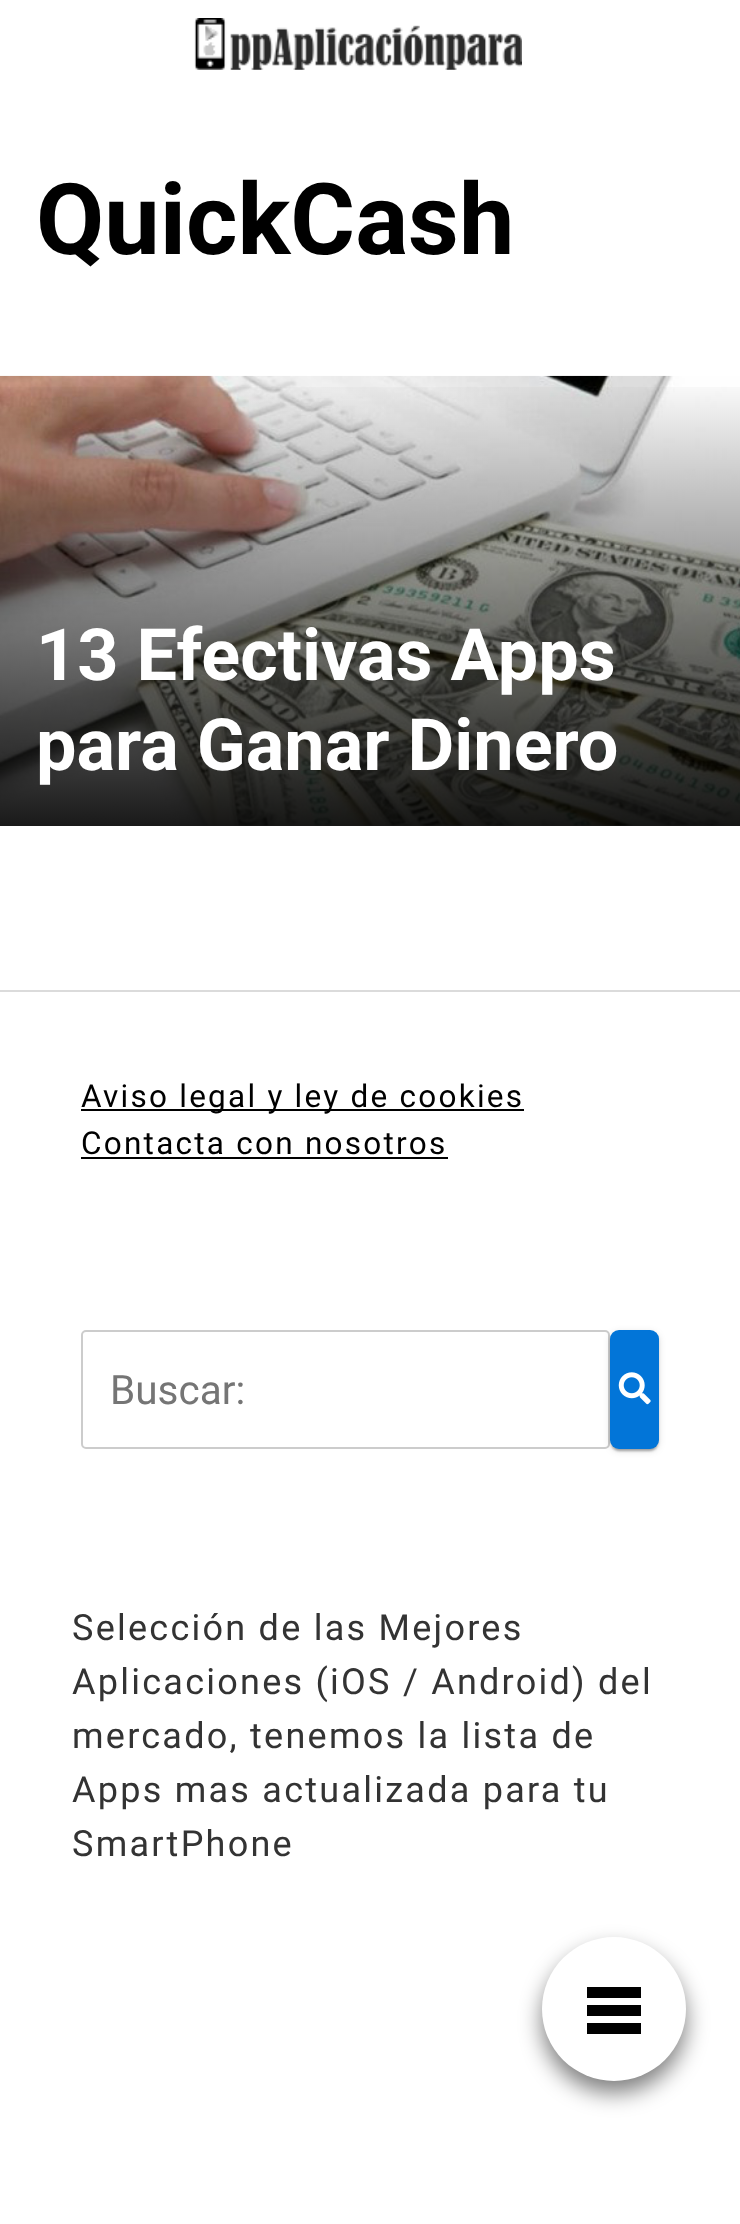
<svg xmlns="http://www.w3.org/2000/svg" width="740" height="2224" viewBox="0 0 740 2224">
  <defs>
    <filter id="blur1" x="-50%" y="-200%" width="200%" height="500%"><feGaussianBlur stdDeviation="11"/></filter>
    <linearGradient id="g1" gradientUnits="userSpaceOnUse" x1="370" y1="376" x2="370" y2="826"><stop offset="0" stop-color="#000000" stop-opacity="0"/><stop offset="1" stop-color="#000000" stop-opacity="0.9"/></linearGradient>
    <filter id="blur2" x="-50%" y="-200%" width="200%" height="500%"><feGaussianBlur stdDeviation="3.5"/></filter>
    <filter id="blur3" x="-50%" y="-200%" width="200%" height="500%"><feGaussianBlur stdDeviation="1"/></filter>
  </defs>
  <rect width="100%" height="100%" fill="#ffffff"/>
  <image x="194" y="18" width="328" height="52" href="img1.png"/>
  <rect x="542" y="1949" width="144" height="144" rx="72" fill="#000000" fill-opacity="0.5" filter="url(#blur1)"/>
  <circle cx="614" cy="2009" r="72" fill="#ffffff"/>
  <rect x="587" y="2005" width="54" height="11" fill="#000000"/>
  <rect x="587" y="1987" width="54" height="11" fill="#000000"/>
  <rect x="587" y="2023" width="54" height="11" fill="#000000"/>
  <text x="36" y="254" font-family="Roboto" font-size="99" font-weight="bold" fill="#000000">QuickCash</text>
  <image x="0" y="375" width="740" height="451" href="img2.png"/>
  <rect x="0" y="387" width="740" height="439" fill="url(#g1)"/>
  <text x="36" y="680" font-family="Roboto" font-size="72" font-weight="bold" fill="#ffffff">13 Efectivas Apps</text>
  <text x="36" y="770" font-family="Roboto" font-size="72" font-weight="bold" fill="#ffffff">para Ganar Dinero</text>
  <rect x="0" y="990" width="740" height="2" fill="#dbdbdb"/>
  <rect x="81" y="1109" width="443" height="2" fill="#000000"/>
  <text x="81" y="1107" font-family="Roboto" font-size="31.5" letter-spacing="2.25" fill="#000000">Aviso legal y ley de cookies</text>
  <text x="81" y="1154" font-family="Roboto" font-size="31.5" letter-spacing="2.25" fill="#000000">Contacta con nosotros</text>
  <rect x="81" y="1157" width="367" height="2" fill="#000000"/>
  <rect x="82" y="1331" width="527" height="117" rx="4" fill="none" stroke="#cccccc" stroke-width="2"/>
  <text x="110" y="1404" font-family="Roboto" font-size="40.5" fill="#757575">Buscar:</text>
  <rect x="610" y="1332" width="49" height="119" rx="9" fill="#000000" fill-opacity="0.12" filter="url(#blur2)"/>
  <rect x="612" y="1337" width="45" height="114" rx="7" fill="#000000" fill-opacity="0.2" filter="url(#blur3)"/>
  <rect x="610" y="1332" width="49" height="119" rx="9" fill="#000000" fill-opacity="0.14" filter="url(#blur3)"/>
  <rect x="610" y="1330" width="49" height="119" rx="9" fill="#0275d8"/>
  <image x="618" y="1372" width="33" height="33" href="img3.png"/>
  <text x="72" y="1640" font-family="Roboto" font-size="36" letter-spacing="2.25" fill="#333333">Selección de las Mejores</text>
  <text x="72" y="1694" font-family="Roboto" font-size="36" letter-spacing="2.25" fill="#333333">Aplicaciones (iOS / Android) del</text>
  <text x="72" y="1748" font-family="Roboto" font-size="36" letter-spacing="2.25" fill="#333333">mercado, tenemos la lista de</text>
  <text x="72" y="1802" font-family="Roboto" font-size="36" letter-spacing="2.25" fill="#333333">Apps mas actualizada para tu</text>
  <text x="72" y="1856" font-family="Roboto" font-size="36" letter-spacing="2.25" fill="#333333">SmartPhone</text>
</svg>
